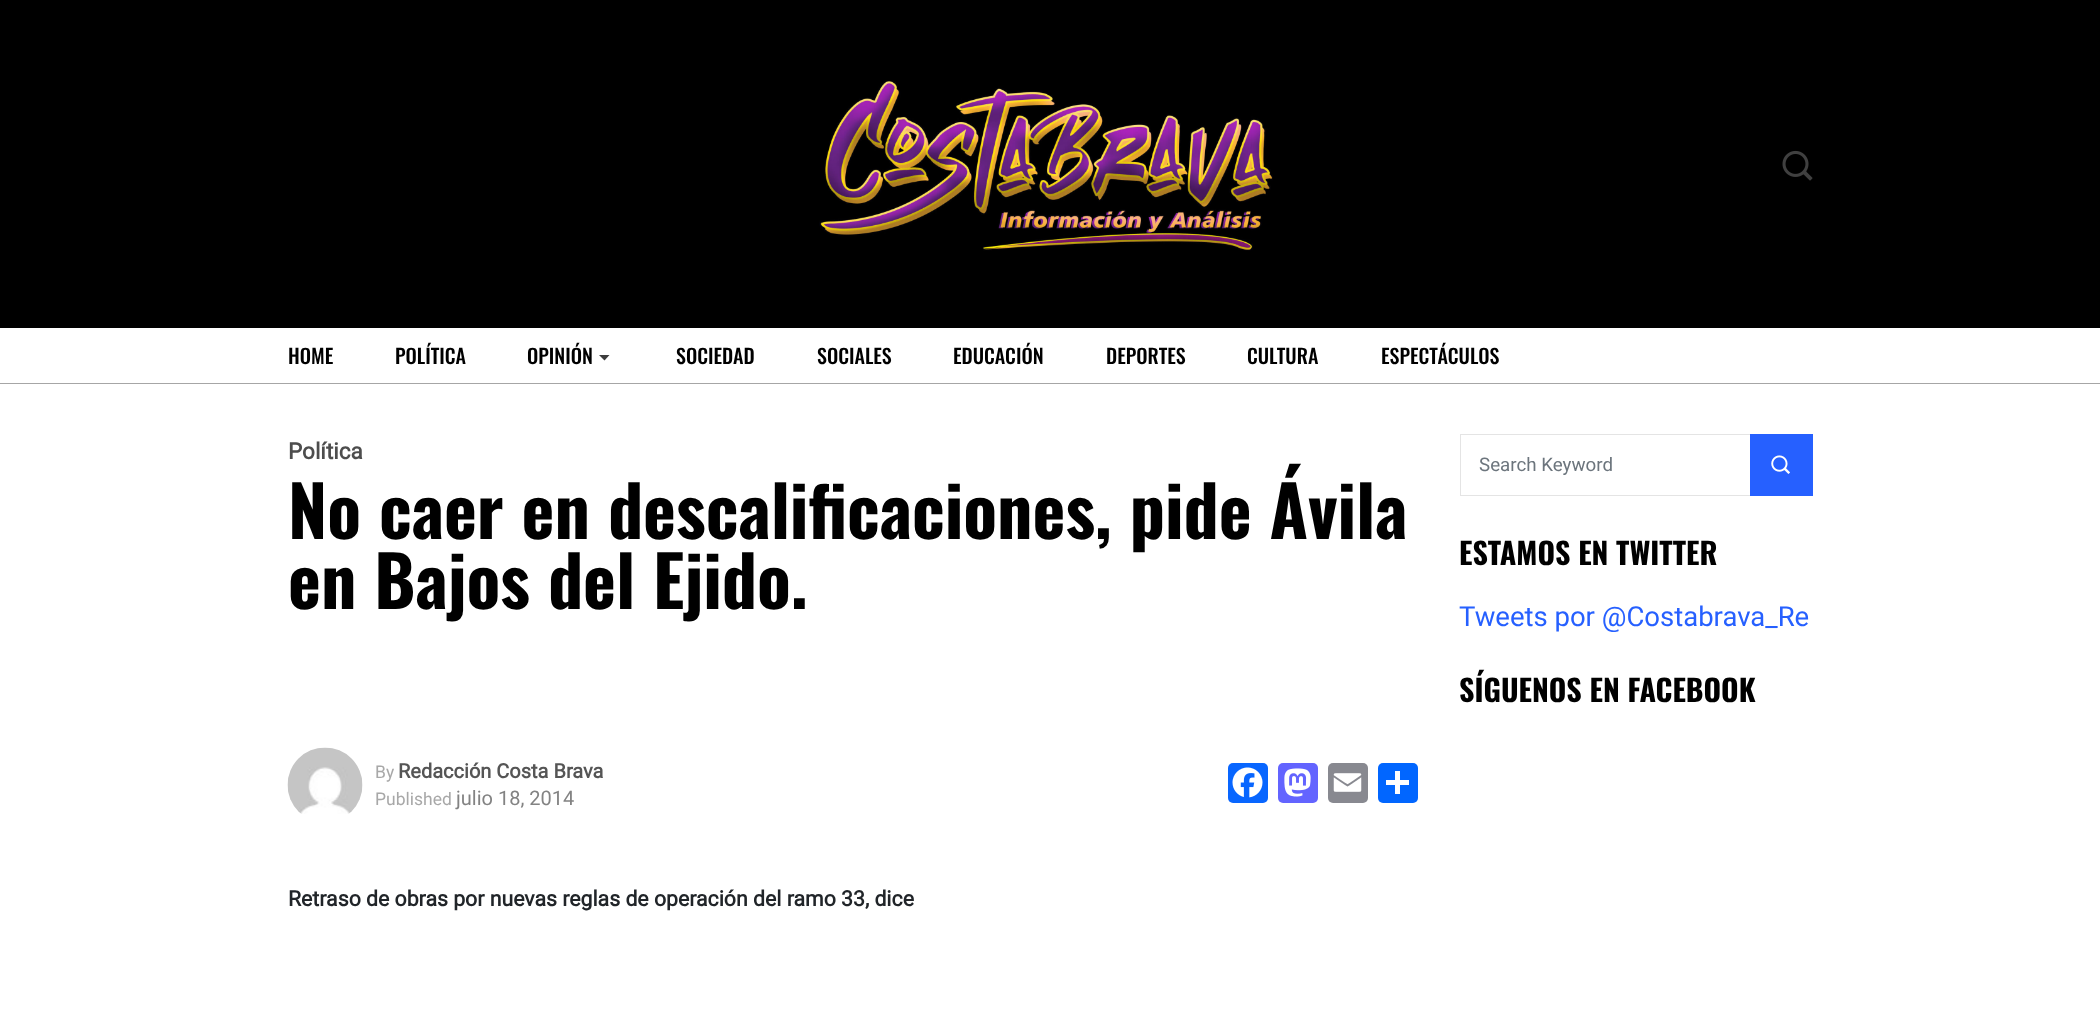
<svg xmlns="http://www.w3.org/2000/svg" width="2100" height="1010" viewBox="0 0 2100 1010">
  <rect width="100%" height="100%" fill="#ffffff"/>
  <rect x="0" y="0" width="2100" height="328" fill="#000000"/>
  <image x="819" y="80" width="454" height="171" href="img1.png"/>
  <image x="1782" y="150" width="31" height="31" href="img2.png"/>
  <rect x="0" y="383" width="2100" height="1" fill="#a6a6a6"/>
  <text x="288" y="364" font-family="Oswald" font-size="20" font-weight="500" fill="#000000">HOME</text>
  <text x="395" y="364" font-family="Oswald" font-size="20" font-weight="500" fill="#000000">POLÍTICA</text>
  <text x="527" y="364" font-family="Oswald" font-size="20" font-weight="500" fill="#000000">OPINIÓN</text>
  <path d="M604.5 360.5L599 355H609.5Z" fill="#3c3c3c"/>
  <text x="676" y="364" font-family="Oswald" font-size="20" font-weight="500" fill="#000000">SOCIEDAD</text>
  <text x="817" y="364" font-family="Oswald" font-size="20" font-weight="500" fill="#000000">SOCIALES</text>
  <text x="953" y="364" font-family="Oswald" font-size="20" font-weight="500" fill="#000000">EDUCACIÓN</text>
  <text x="1106" y="364" font-family="Oswald" font-size="20" font-weight="500" fill="#000000">DEPORTES</text>
  <text x="1247" y="364" font-family="Oswald" font-size="20" font-weight="500" fill="#000000">CULTURA</text>
  <text x="1381" y="364" font-family="Oswald" font-size="20" font-weight="500" fill="#000000">ESPECTÁCULOS</text>
  <text x="288" y="459" font-family="Roboto" font-size="22.5" font-weight="bold" fill="#4d4d4d">Política</text>
  <text x="288" y="539" font-family="Oswald" font-size="70" font-weight="bold" fill="#000000">No caer en descalificaciones, pide Ávila</text>
  <text x="288" y="609" font-family="Oswald" font-size="70" font-weight="bold" fill="#000000">en Bajos del Ejido.</text>
  <image x="287" y="747" width="76" height="67" href="img3.png"/>
  <text x="375" y="778" font-family="Roboto" font-size="17.5" fill="#a8a8a8">By</text>
  <text x="398" y="778" font-family="Roboto" font-size="20" font-weight="bold" fill="#555555">Redacción Costa Brava</text>
  <text x="375" y="805" font-family="Roboto" font-size="17.5" fill="#a8a8a8">Published</text>
  <text x="456" y="805" font-family="Roboto" font-size="20" fill="#838383">julio 18, 2014</text>
  <rect x="1228" y="763" width="40" height="40" rx="5" fill="#0866ff"/>
  <image x="1232" y="767" width="31" height="31" href="img4.png"/>
  <rect x="1278" y="763" width="40" height="40" rx="5" fill="#6364ff"/>
  <image x="1284" y="768" width="27" height="29" href="img5.png"/>
  <rect x="1328" y="763" width="40" height="40" rx="5" fill="#888990"/>
  <image x="1333" y="773" width="29" height="19" href="img6.png"/>
  <rect x="1378" y="763" width="40" height="40" rx="5" fill="#0166ff"/>
  <rect x="1395" y="771" width="5" height="23" fill="#ffffff"/>
  <rect x="1386" y="780" width="23" height="5" fill="#ffffff"/>
  <text x="288" y="906" font-family="Roboto" font-size="21.25" font-weight="bold" fill="#212529">Retraso de obras por nuevas reglas de operación del ramo 33, dice</text>
  <rect x="1460.5" y="434.5" width="352" height="61" fill="none" stroke="#e4e4e4"/>
  <text x="1479" y="471" font-family="Roboto" font-size="18.75" fill="#6c757d">Search Keyword</text>
  <rect x="1750" y="434" width="63" height="62" fill="#2660ff"/>
  <image x="1771" y="455" width="19" height="19" href="img7.png"/>
  <text x="1459" y="565" font-family="Oswald" font-size="30" font-weight="bold" fill="#000000">ESTAMOS EN TWITTER</text>
  <text x="1459" y="626" font-family="Roboto" font-size="27.5" fill="#2660ff">Tweets por @Costabrava_Re</text>
  <text x="1459" y="702" font-family="Oswald" font-size="30" font-weight="bold" fill="#000000">SÍGUENOS EN FACEBOOK</text>
</svg>
